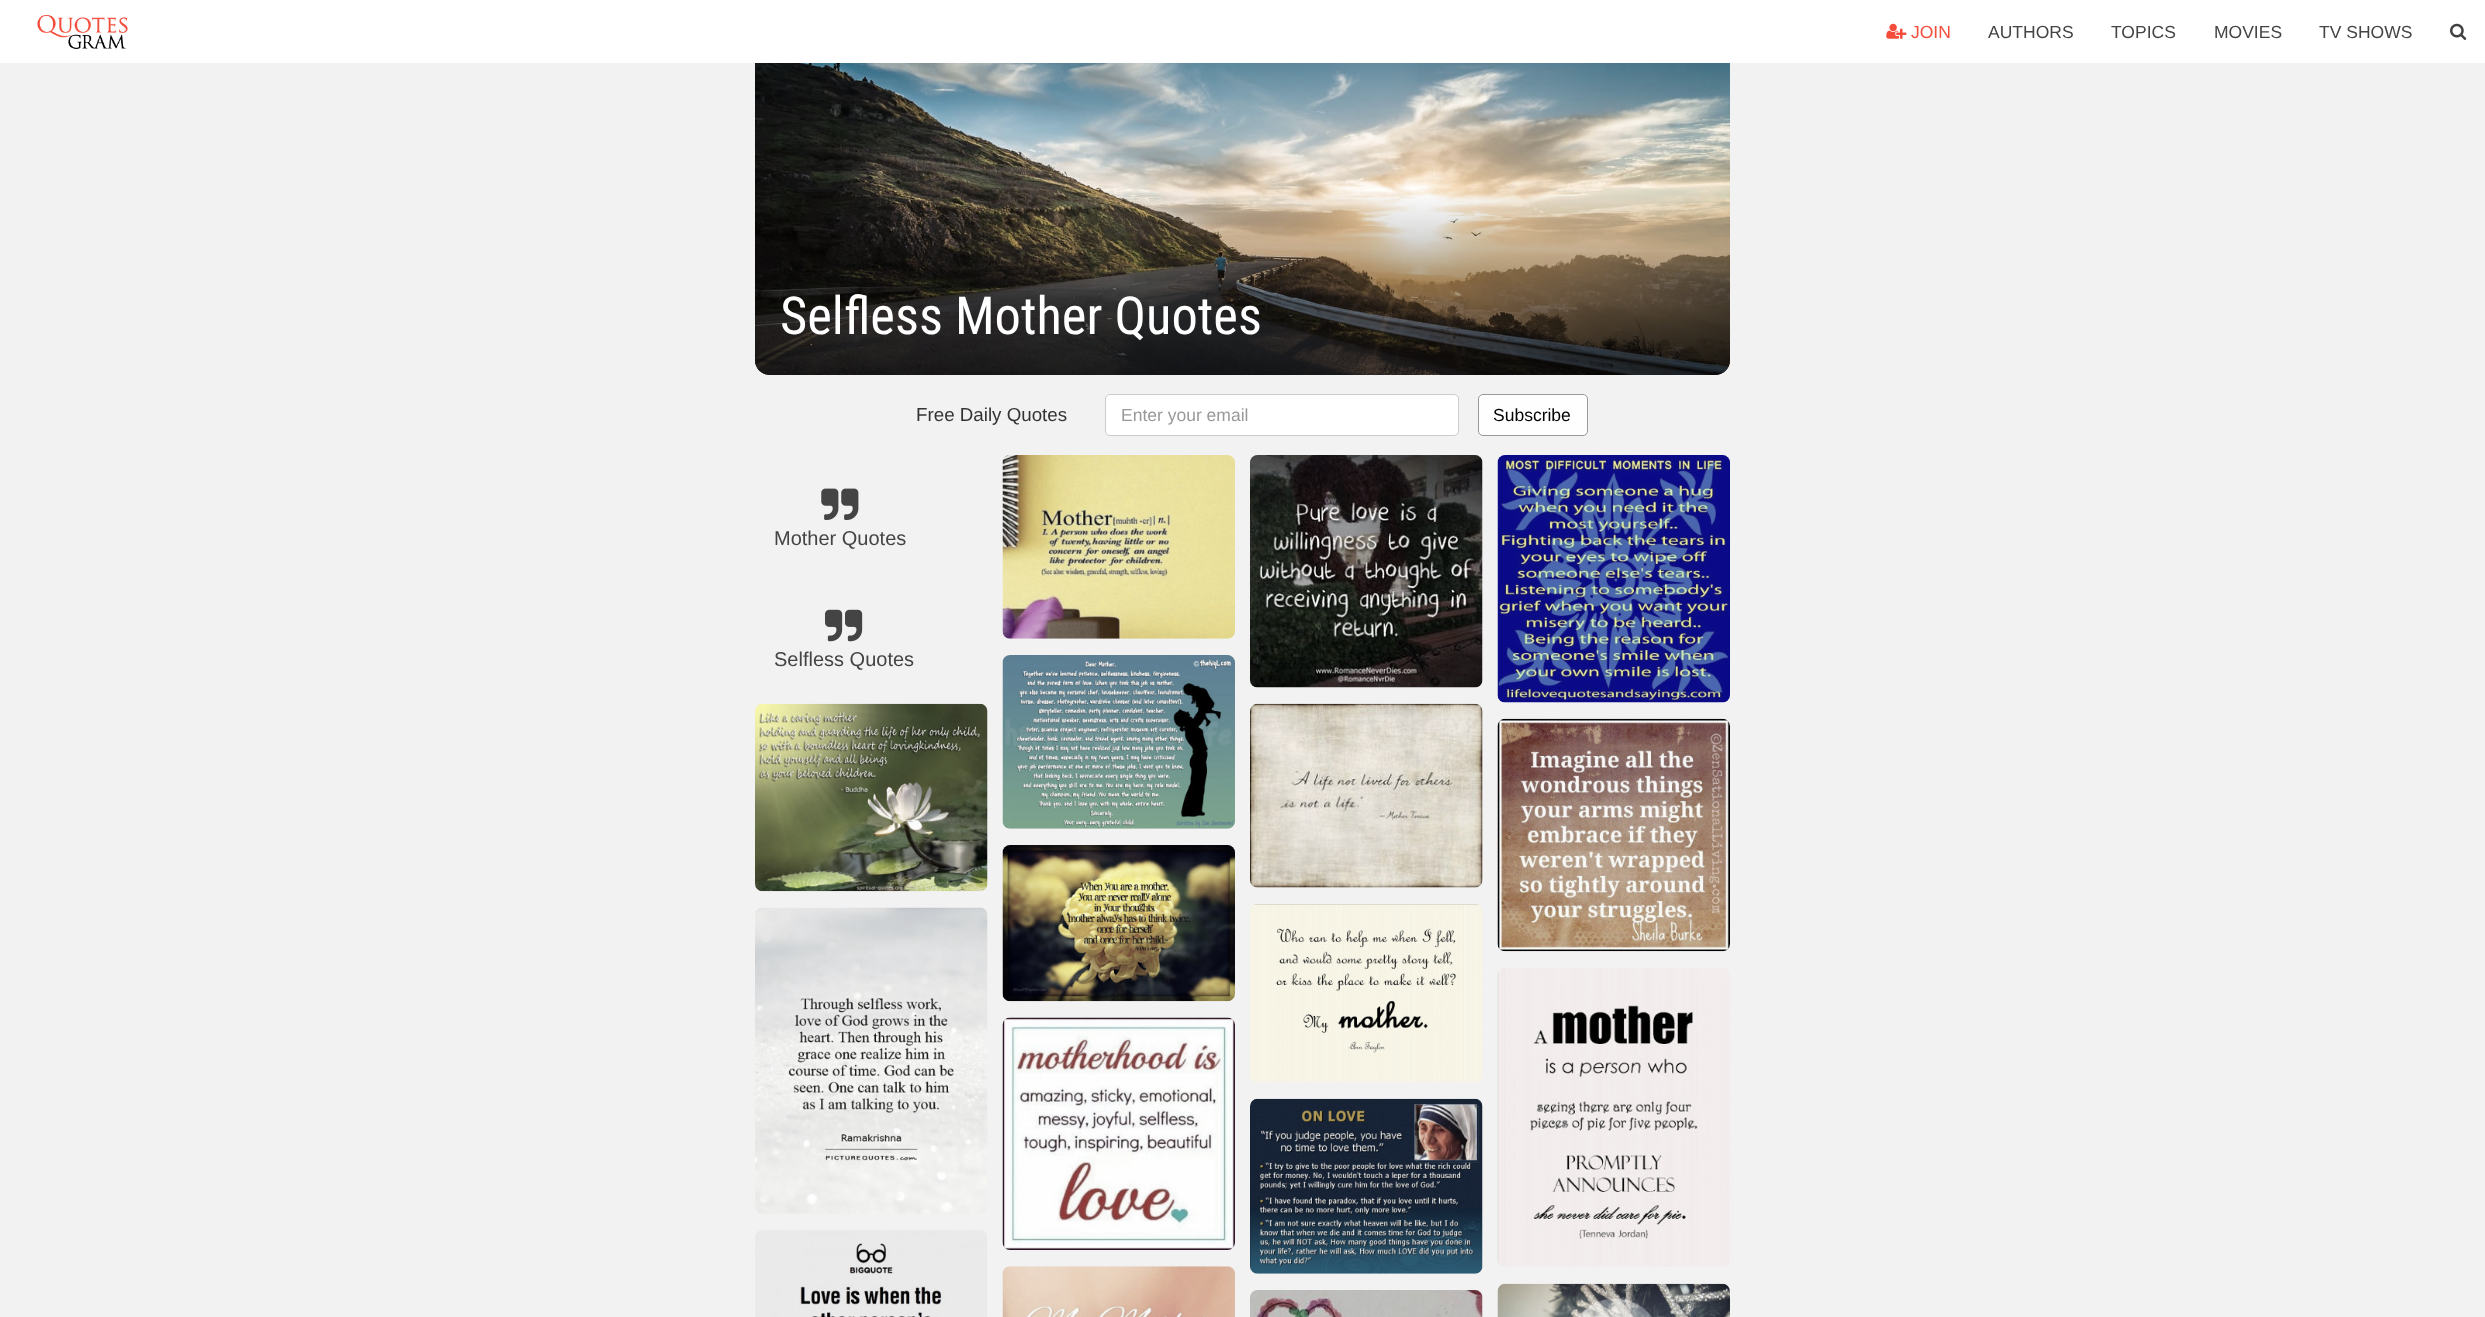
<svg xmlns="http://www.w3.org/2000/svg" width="2485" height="1317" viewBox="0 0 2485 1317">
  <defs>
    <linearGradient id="g1" gradientUnits="userSpaceOnUse" x1="1243" y1="190" x2="1243" y2="375"><stop offset="0" stop-color="#000000" stop-opacity="0"/><stop offset="1" stop-color="#000000" stop-opacity="0.6"/></linearGradient>
  </defs>
  <rect width="100%" height="100%" fill="#f2f2f2"/>
  <rect x="0" y="0" width="2485" height="63" fill="#ffffff"/>
  <image x="37" y="15" width="91" height="34" href="img1.png"/>
  <image x="1886" y="23" width="21" height="16" href="img2.png"/>
  <text x="1911" y="38" font-family="Liberation Sans" font-size="17.5" fill="#f44d3c">JOIN</text>
  <text x="1988" y="38" font-family="Liberation Sans" font-size="17.5" fill="#444444">AUTHORS</text>
  <text x="2111" y="38" font-family="Liberation Sans" font-size="17.5" fill="#444444">TOPICS</text>
  <text x="2214" y="38" font-family="Liberation Sans" font-size="17.5" fill="#444444">MOVIES</text>
  <text x="2319" y="38" font-family="Liberation Sans" font-size="17.5" fill="#444444">TV SHOWS</text>
  <image x="2450" y="23" width="17" height="17" href="img3.png"/>
  <path d="M755 63H1730V360C1730 368.5 1723.5 375 1715 375H770C761.5 375 755 368.5 755 360Z" fill="#4e2b2b"/>
  <image x="755" y="63" width="975" height="312" href="img4.png"/>
  <path d="M755 190H1730V360C1730 368.5 1723.5 375 1715 375H770C761.5 375 755 368.5 755 360Z" fill="url(#g1)"/>
  <text x="780" y="334" font-family="Roboto Condensed" font-size="52.5" fill="#ffffff">Selfless Mother Quotes</text>
  <text x="916" y="421" font-family="Liberation Sans" font-size="18.75" fill="#333333">Free Daily Quotes</text>
  <rect x="1105.5" y="394.5" width="353" height="41" rx="4.5" fill="#ffffff" stroke="#cccccc"/>
  <text x="1121" y="421" font-family="Liberation Sans" font-size="17.5" fill="#999999">Enter your email</text>
  <rect x="1478.5" y="394.5" width="109" height="41" rx="4.5" fill="#fefefe" stroke="#999999"/>
  <text x="1493" y="421" font-family="Liberation Sans" font-size="17.5" fill="#000000">Subscribe</text>
  <image x="821" y="488" width="38" height="32" href="img5.png"/>
  <text x="774" y="545" font-family="Liberation Sans" font-size="20" fill="#444444">Mother Quotes</text>
  <image x="1002" y="455" width="233" height="184" href="img6.png"/>
  <image x="1250" y="455" width="233" height="233" href="img7.png"/>
  <image x="1497" y="455" width="233" height="248" href="img8.png"/>
  <image x="825" y="609" width="38" height="33" href="img9.png"/>
  <text x="774" y="666" font-family="Liberation Sans" font-size="20" fill="#444444">Selfless Quotes</text>
  <image x="1002" y="655" width="233" height="174" href="img10.png"/>
  <image x="755" y="703" width="233" height="189" href="img11.png"/>
  <image x="1002" y="845" width="233" height="157" href="img12.png"/>
  <image x="1250" y="703" width="233" height="185" href="img13.png"/>
  <image x="1497" y="718" width="233" height="234" href="img14.png"/>
  <image x="755" y="907" width="233" height="307" href="img15.png"/>
  <image x="1002" y="1017" width="233" height="233" href="img16.png"/>
  <image x="1250" y="904" width="233" height="178" href="img17.png"/>
  <image x="1497" y="968" width="233" height="299" href="img18.png"/>
  <image x="755" y="1230" width="232" height="87" href="img19.png"/>
  <image x="1002" y="1266" width="233" height="51" href="img20.png"/>
  <image x="1250" y="1098" width="233" height="176" href="img21.png"/>
  <image x="1497" y="1283" width="233" height="34" href="img22.png"/>
  <image x="1250" y="1290" width="233" height="27" href="img23.png"/>
</svg>
